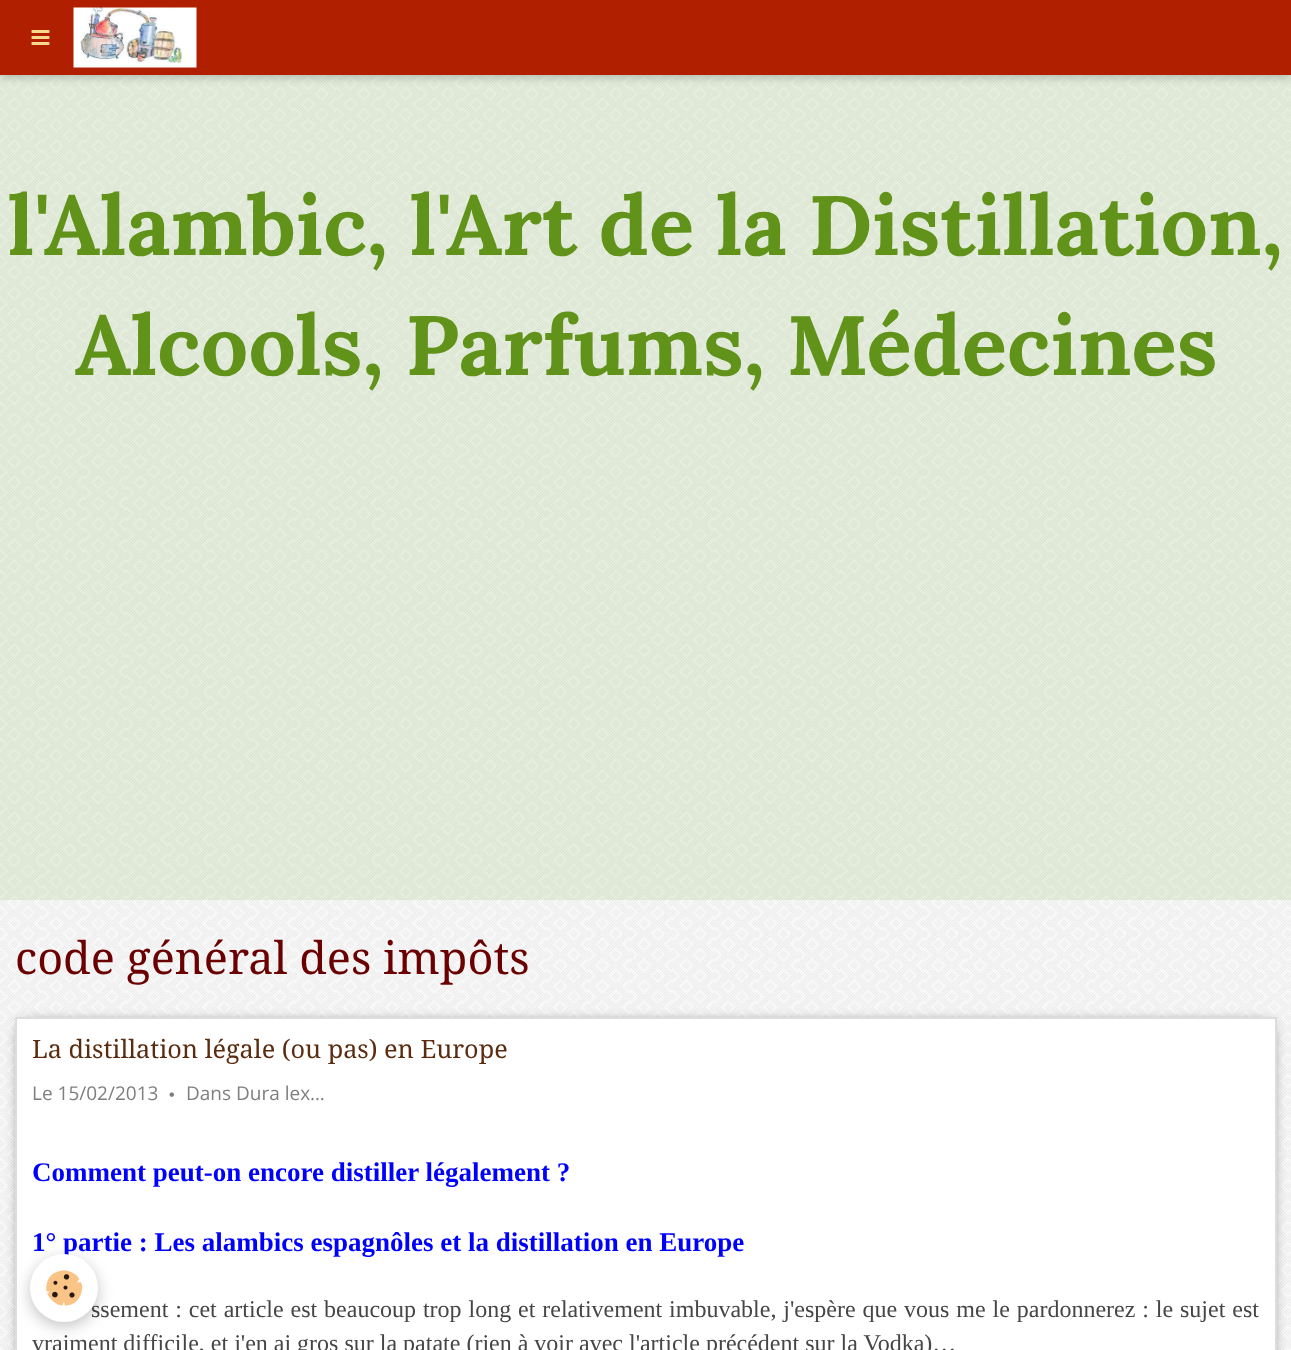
<svg xmlns="http://www.w3.org/2000/svg" width="1291" height="1350" viewBox="0 0 1291 1350">
  <defs>
    <filter id="blur1" x="-50%" y="-200%" width="200%" height="500%"><feGaussianBlur stdDeviation="4"/></filter>
    <filter id="blur2" x="-50%" y="-200%" width="200%" height="500%"><feGaussianBlur stdDeviation="7.5"/></filter>
  </defs>
  <rect width="100%" height="100%" fill="#ffffff"/>
  <image x="0" y="75" width="1291" height="1275" href="img1.png"/>
  <rect x="0" y="75" width="1291" height="825" fill="#9cc974" fill-opacity="0.2"/>
  <rect x="0" y="3" width="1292" height="75" fill="#000000" fill-opacity="0.2" filter="url(#blur1)"/>
  <rect x="0" y="0" width="1291" height="75" fill="#b01f00"/>
  <image x="31" y="30" width="19" height="15" href="img2.png"/>
  <image x="73" y="7" width="124" height="61" href="img3.png"/>
  <text x="8" y="255" font-family="Lora" font-size="84" font-weight="bold" fill="#61921a">l'Alambic, l'Art de la Distillation,</text>
  <text x="75" y="375" font-family="Lora" font-size="84" font-weight="bold" fill="#61921a">Alcools, Parfums, Médecines</text>
  <text x="15" y="974" font-family="Droid Serif" font-size="45" fill="#6a0002">code général des impôts</text>
  <rect x="23" y="1026" width="1246" height="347" fill="#000000" filter="url(#blur2)"/>
  <rect x="16" y="1018" width="1260" height="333" fill="#ffffff" stroke="#dddddd" stroke-width="2"/>
  <text x="32" y="1058" font-family="Droid Serif" font-size="25.25" fill="#5b2c10">La distillation légale (ou pas) en Europe</text>
  <text x="32" y="1100" font-family="Open Sans" font-size="19" fill="#7e7e7e">Le 15/02/2013</text>
  <image x="169" y="1092" width="5" height="5" href="img4.png"/>
  <text x="186" y="1100" font-family="Open Sans" font-size="19" fill="#7e7e7e">Dans Dura lex…</text>
  <text x="32" y="1181" font-family="Liberation Serif" font-size="27" font-weight="bold" fill="#0000ff">Comment peut-on encore distiller légalement ?</text>
  <text x="32" y="1251" font-family="Liberation Serif" font-size="27" font-weight="bold" fill="#0000ff">1° partie : Les alambics espagnôles et la distillation en Europe</text>
  <text x="91" y="1317" word-spacing="0.9" font-family="Liberation Serif" font-size="24" fill="#464646">ssement : cet article est beaucoup trop long et relativement imbuvable, j'espère que vous me le pardonnerez : le sujet est</text>
  <text x="32" y="1351" font-family="Liberation Serif" font-size="24" fill="#464646">vraiment difficile, et j'en ai gros sur la patate (rien à voir avec l'article précédent sur la Vodka)…</text>
  <rect x="30" y="1259" width="68" height="67" rx="33.5" fill="#000000" fill-opacity="0.24" filter="url(#blur2)"/>
  <circle cx="64" cy="1288" r="34" fill="#ffffff"/>
  <image x="46" y="1270" width="37" height="36" href="img5.png"/>
</svg>
